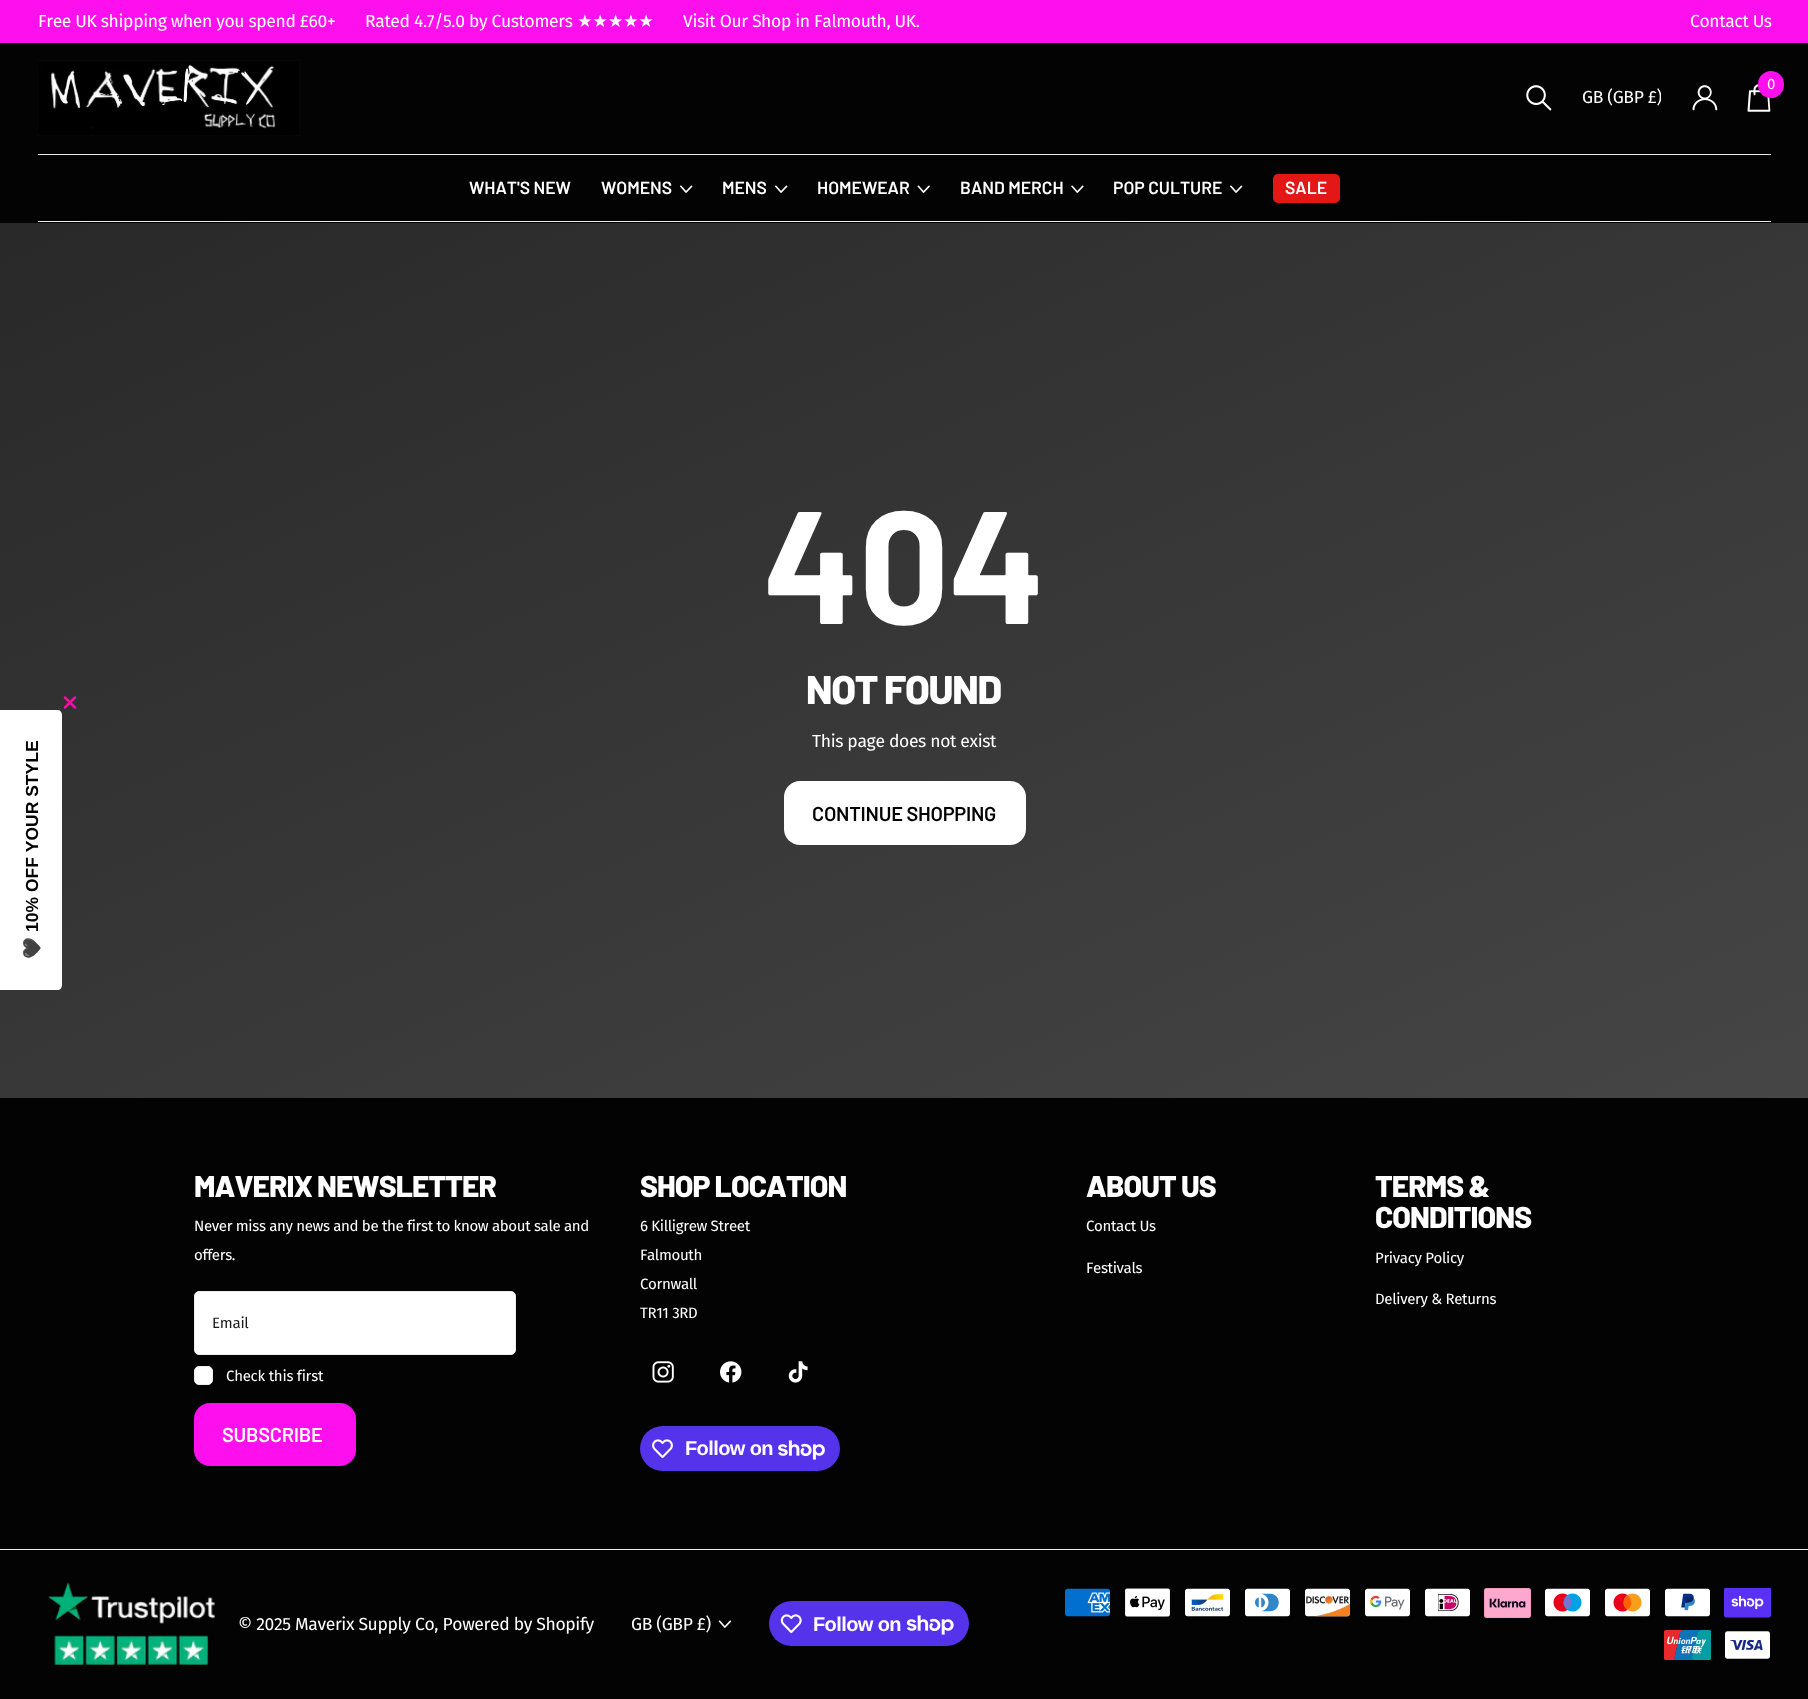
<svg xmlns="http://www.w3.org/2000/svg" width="1808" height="1699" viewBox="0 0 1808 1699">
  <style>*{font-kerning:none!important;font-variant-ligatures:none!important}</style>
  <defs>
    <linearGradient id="g1" gradientUnits="userSpaceOnUse" x1="1343" y1="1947" x2="465" y2="-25"><stop offset="0.04" stop-color="#4f4f4f"/><stop offset="1" stop-color="#282828"/></linearGradient>
    <clipPath id="clip1"><rect x="1581" y="71" width="80" height="55"/></clipPath>
  </defs>
  <rect width="100%" height="100%" fill="#ffffff"/>
  <rect x="0" y="223" width="1808" height="875" fill="url(#g1)"/>
  <path d="M65 707.5L75 697.5M75 707.5L65 697.5Z" fill="none" stroke="#f50da4" stroke-width="2.5" stroke-linecap="round" stroke-linejoin="round"/>
  <path d="M0 990V710H58C60 710 62 712 62 715V985C62 988 60 990 58 990Z" fill="#ffffff"/>
  <text x="38" y="932" transform="rotate(-90 38 932)" font-family="Liberation Sans" font-size="17.5" font-weight="bold" fill="#000000">10% OFF YOUR STYLE</text>
  <text x="38" y="959" transform="rotate(-90 38 959)" font-family="Noto Color Emoji" font-size="17.5" font-weight="bold" fill="#000000">🖤</text>
  <rect x="0" y="0" width="1808" height="43" fill="#fd0fee"/>
  <text x="38" y="27" font-family="Fira Sans" font-size="17.5" letter-spacing="-0.35" fill="#ffffff">Free UK shipping when you spend £60+</text>
  <text x="365" y="27" font-family="Fira Sans" font-size="17.5" letter-spacing="-0.35" fill="#ffffff">Rated 4.7/5.0 by Customers</text>
  <text x="577" y="27" font-family="DejaVu Sans" font-size="17.5" letter-spacing="-0.35" fill="#ffffff">★★★★★</text>
  <text x="683" y="27" font-family="Fira Sans" font-size="17.5" letter-spacing="-0.35" fill="#ffffff">Visit Our Shop in Falmouth, UK.</text>
  <text x="1690" y="27" font-family="Fira Sans" font-size="17.5" letter-spacing="-0.35" fill="#ffffff">Contact Us</text>
  <rect x="0" y="43" width="1808" height="180" fill="#030303"/>
  <image x="38" y="60" width="262" height="76" href="img1.png"/>
  <image x="1526" y="85" width="26" height="26" href="img2.png"/>
  <g clip-path="url(#clip1)">
    <text x="1582" y="103" font-family="Fira Sans" font-size="17.55" letter-spacing="-0.35" fill="#ffffff">GB (GBP £)</text>
  </g>
  <image x="1692" y="85" width="26" height="26" href="img3.png"/>
  <image x="1747" y="84" width="24" height="28" href="img4.png"/>
  <rect x="1758" y="71" width="26" height="27" rx="13" fill="#fd0fee"/>
  <text x="1767" y="89" font-family="Fira Sans" font-size="15" letter-spacing="-0.25" fill="#ffffff">0</text>
  <rect x="38" y="154" width="1733" height="1" fill="#ececec"/>
  <rect x="38" y="221" width="1733" height="1" fill="#ececec"/>
  <text x="469" y="194" font-family="Barlow" font-size="17.5" font-weight="600" fill="#ffffff">WHAT'S NEW</text>
  <text x="601" y="194" font-family="Barlow" font-size="17.5" font-weight="600" fill="#ffffff">WOMENS</text>
  <image x="680" y="185" width="13" height="8" href="img5.png"/>
  <text x="722" y="194" font-family="Barlow" font-size="17.5" font-weight="600" fill="#ffffff">MENS</text>
  <image x="775" y="185" width="13" height="8" href="img5.png"/>
  <text x="817" y="194" font-family="Barlow" font-size="17.5" font-weight="600" fill="#ffffff">HOMEWEAR</text>
  <image x="917" y="185" width="13" height="8" href="img6.png"/>
  <text x="960" y="194" font-family="Barlow" font-size="17.5" font-weight="600" fill="#ffffff">BAND MERCH</text>
  <image x="1071" y="185" width="13" height="8" href="img7.png"/>
  <text x="1113" y="194" font-family="Barlow" font-size="17.5" font-weight="600" fill="#ffffff">POP CULTURE</text>
  <image x="1230" y="185" width="13" height="8" href="img5.png"/>
  <rect x="1273" y="174" width="67" height="29" rx="5" fill="#e41717"/>
  <text x="1285" y="194" font-family="Barlow" font-size="17.5" font-weight="600" fill="#ffffff">SALE</text>
  <text x="763" y="624" font-family="Barlow" font-size="160" font-weight="bold" letter-spacing="-1.25" fill="#ffffff">404</text>
  <text x="806" y="704" font-family="Barlow" font-size="40" font-weight="800" letter-spacing="-1.25" fill="#ffffff">NOT FOUND</text>
  <text x="812" y="747" font-family="Fira Sans" font-size="17.55" letter-spacing="-0.35" fill="#ffffff">This page does not exist</text>
  <rect x="784" y="781" width="242" height="64" rx="16" fill="#ffffff"/>
  <text x="812" y="821" font-family="Barlow" font-size="20" font-weight="600" letter-spacing="-0.25" fill="#000000">CONTINUE SHOPPING</text>
  <rect x="0" y="1098" width="1808" height="601" fill="#030303"/>
  <text x="194" y="1197" font-family="Barlow" font-size="30" font-weight="800" letter-spacing="-0.9" fill="#ffffff">MAVERIX NEWSLETTER</text>
  <text x="194" y="1231" font-family="Fira Sans" font-size="15.05" letter-spacing="-0.35" fill="#ffffff">Never miss any news and be the first to know about sale and</text>
  <text x="194" y="1260" font-family="Fira Sans" font-size="15.05" letter-spacing="-0.35" fill="#ffffff">offers.</text>
  <rect x="194.5" y="1291.5" width="321" height="63" rx="4.5" fill="#ffffff" stroke="#ececec"/>
  <text x="212" y="1328" font-family="Fira Sans" font-size="15.05" letter-spacing="-0.25" fill="#1a1a1a">Email</text>
  <rect x="194.5" y="1366.5" width="18" height="18" rx="4.5" fill="#ffffff" stroke="#ececec"/>
  <text x="226" y="1381" font-family="Fira Sans" font-size="15" letter-spacing="-0.25" fill="#ffffff">Check this first</text>
  <rect x="194" y="1403" width="162" height="63" rx="16" fill="#fd0fee"/>
  <text x="222" y="1442" font-family="Barlow" font-size="20" font-weight="600" letter-spacing="-0.25" fill="#ffffff">SUBSCRIBE</text>
  <text x="640" y="1197" font-family="Barlow" font-size="30" font-weight="800" letter-spacing="-0.9" fill="#ffffff">SHOP LOCATION</text>
  <text x="640" y="1231" font-family="Fira Sans" font-size="15.05" letter-spacing="-0.35" fill="#ffffff">6 Killigrew Street</text>
  <text x="640" y="1260" font-family="Fira Sans" font-size="15.05" letter-spacing="-0.35" fill="#ffffff">Falmouth</text>
  <text x="640" y="1289" font-family="Fira Sans" font-size="15.05" letter-spacing="-0.35" fill="#ffffff">Cornwall</text>
  <text x="640" y="1318" font-family="Fira Sans" font-size="15.05" letter-spacing="-0.35" fill="#ffffff">TR11 3RD</text>
  <image x="652" y="1361" width="22" height="22" href="img8.png"/>
  <image x="720" y="1361" width="22" height="22" href="img9.png"/>
  <image x="788" y="1361" width="20" height="22" href="img10.png"/>
  <rect x="640" y="1426" width="200" height="45" rx="22.5" fill="#5433eb"/>
  <image x="652" y="1439" width="21" height="20" href="img11.png"/>
  <text x="685" y="1455" font-family="Liberation Sans" font-size="20" font-weight="bold" letter-spacing="-0.6" fill="#ffffff">Follow on</text>
  <image x="778" y="1440" width="47" height="20" href="img12.png"/>
  <text x="1086" y="1197" font-family="Barlow" font-size="30" font-weight="800" letter-spacing="-0.9" fill="#ffffff">ABOUT US</text>
  <text x="1086" y="1231" font-family="Fira Sans" font-size="15.05" letter-spacing="-0.35" fill="#ffffff">Contact Us</text>
  <text x="1086" y="1273" font-family="Fira Sans" font-size="15.05" letter-spacing="-0.35" fill="#ffffff">Festivals</text>
  <text x="1375" y="1197" font-family="Barlow" font-size="30" font-weight="800" letter-spacing="-0.9" fill="#ffffff">TERMS &amp;</text>
  <text x="1375" y="1228" font-family="Barlow" font-size="30" font-weight="800" letter-spacing="-0.9" fill="#ffffff">CONDITIONS</text>
  <text x="1375" y="1263" font-family="Fira Sans" font-size="15.05" letter-spacing="-0.35" fill="#ffffff">Privacy Policy</text>
  <text x="1375" y="1304" font-family="Fira Sans" font-size="15.05" letter-spacing="-0.35" fill="#ffffff">Delivery &amp; Returns</text>
  <rect x="0" y="1549" width="1808" height="1" fill="#ececec"/>
  <image x="48" y="1582" width="167" height="83" href="img13.png"/>
  <text x="238" y="1630" font-family="Fira Sans" font-size="17.55" letter-spacing="-0.35" fill="#ffffff">© 2025 Maverix Supply Co, Powered by Shopify</text>
  <text x="631" y="1630" font-family="Fira Sans" font-size="17.55" letter-spacing="-0.35" fill="#ffffff">GB (GBP £)</text>
  <image x="718" y="1620" width="14" height="8" href="img14.png"/>
  <rect x="769" y="1601" width="200" height="45" rx="22.5" fill="#5433eb"/>
  <image x="780" y="1614" width="22" height="20" href="img15.png"/>
  <text x="813" y="1631" font-family="Liberation Sans" font-size="20" font-weight="bold" letter-spacing="-0.6" fill="#ffffff">Follow on</text>
  <image x="906" y="1615" width="48" height="20" href="img16.png"/>
  <image x="1065" y="1588" width="45" height="29" href="img17.png"/>
  <image x="1125" y="1588" width="45" height="29" href="img18.png"/>
  <image x="1185" y="1588" width="45" height="29" href="img19.png"/>
  <image x="1245" y="1588" width="45" height="29" href="img20.png"/>
  <image x="1305" y="1588" width="46" height="29" href="img21.png"/>
  <image x="1365" y="1588" width="45" height="29" href="img22.png"/>
  <image x="1425" y="1588" width="45" height="29" href="img23.png"/>
  <image x="1484" y="1588" width="47" height="30" href="img24.png"/>
  <image x="1545" y="1588" width="45" height="29" href="img25.png"/>
  <image x="1605" y="1588" width="45" height="29" href="img26.png"/>
  <image x="1665" y="1588" width="45" height="29" href="img27.png"/>
  <image x="1724" y="1588" width="47" height="30" href="img28.png"/>
  <image x="1664" y="1630" width="47" height="30" href="img29.png"/>
  <image x="1725" y="1631" width="45" height="28" href="img30.png"/>
</svg>
